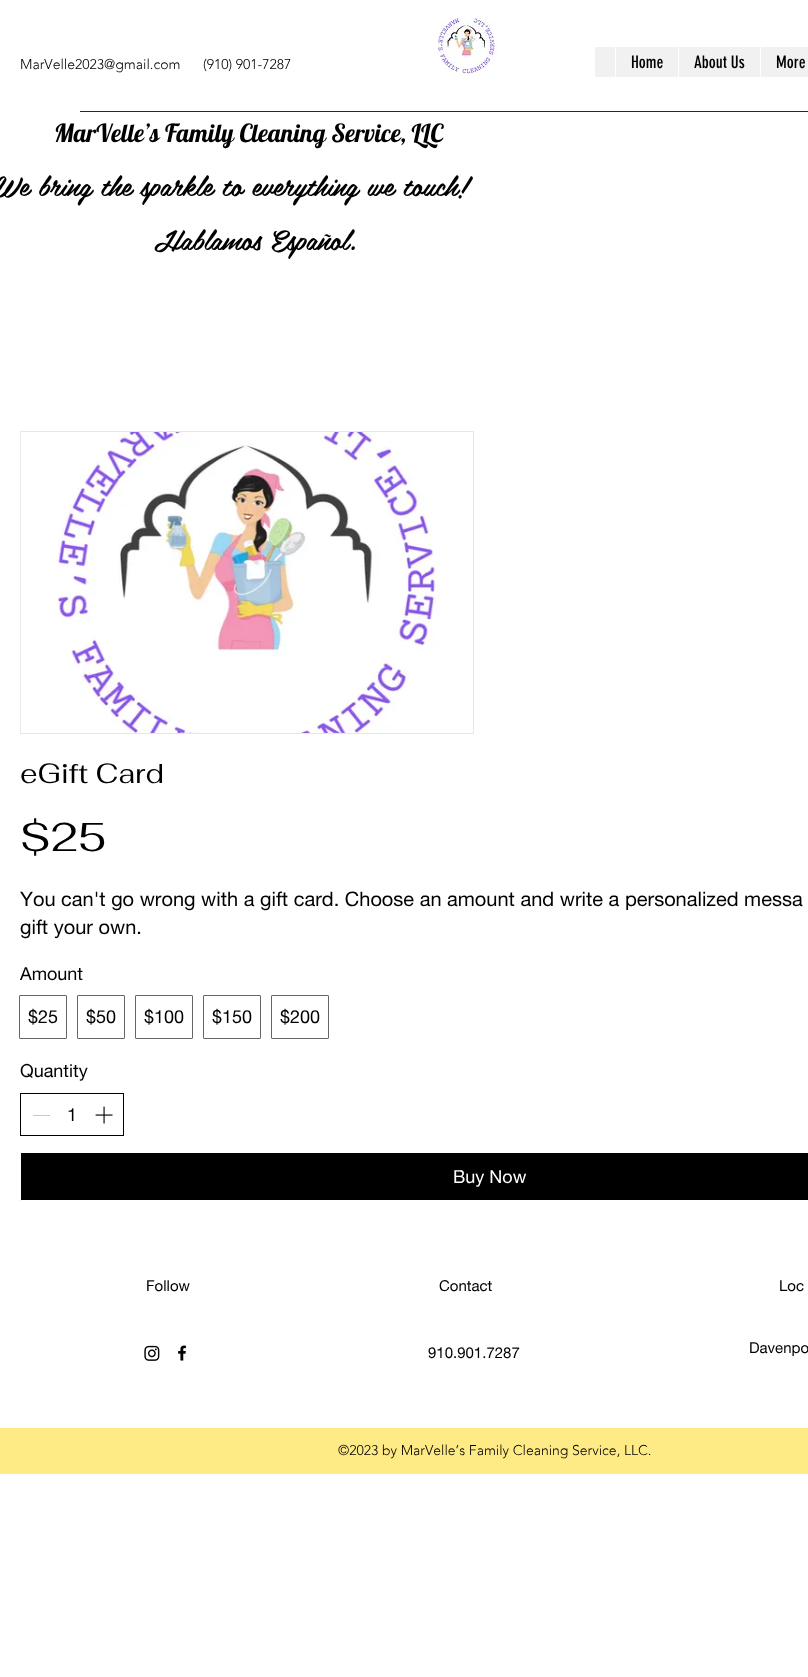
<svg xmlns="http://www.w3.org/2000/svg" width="808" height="1677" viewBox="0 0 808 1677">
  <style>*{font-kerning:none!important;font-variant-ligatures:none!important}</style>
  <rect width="100%" height="100%" fill="#ffffff"/>
  <rect x="595" y="47" width="213" height="30" fill="#f1f1f1"/>
  <rect x="615" y="47" width="1" height="30" fill="#ffffff"/>
  <text x="631" y="68" font-family="'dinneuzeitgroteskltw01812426'" font-size="17" fill="#000000">Home</text>
  <rect x="678" y="47" width="1" height="30" fill="#ffffff"/>
  <text x="694" y="68" font-family="'dinneuzeitgroteskltw01812426'" font-size="17" fill="#000000">About Us</text>
  <rect x="760" y="47" width="1" height="30" fill="#ffffff"/>
  <text x="776" y="68" font-family="'dinneuzeitgroteskltw01812426'" font-size="17" fill="#000000">More</text>
  <image x="438" y="18" width="60" height="60" href="img1.png"/>
  <text x="54" y="142" font-family="Lobster" font-size="25" fill="#000000">MarVelle’s Family Cleaning Service, LLC</text>
  <text x="20" y="69" font-family="'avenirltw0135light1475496'" font-size="14" font-weight="300" fill="#000000">MarVelle2023@gmail.com</text>
  <text x="203" y="69" font-family="'avenirltw0135light1475496'" font-size="14" font-weight="300" fill="#000000">(910) 901-7287</text>
  <rect x="80" y="111" width="728" height="1" fill="#262626"/>
  <text x="-5" y="196" font-family="'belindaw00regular'" font-size="28" fill="#000000">We bring the sparkle to everything we touch!</text>
  <text x="154" y="250" font-family="'belindaw00regular'" font-size="28" fill="#000000">Hablamos Español.</text>
  <rect x="20.5" y="431.5" width="453" height="302" fill="none" stroke="#e8e6e6"/>
  <image x="58" y="432" width="382" height="301" href="img2.png"/>
  <text x="20" y="783" font-family="Fahkwang" font-size="28" fill="#000000">eGift Card</text>
  <text x="20" y="851" font-family="Fahkwang" font-size="40" fill="#000000">$25</text>
  <text x="20" y="906" font-family="helvetica neue" font-size="20" fill="#000000">You can't go wrong with a gift card. Choose an amount and write a personalized messa</text>
  <text x="20" y="934" font-family="helvetica neue" font-size="20" fill="#000000">gift your own.</text>
  <text x="20" y="980" font-family="helvetica neue" font-size="18" fill="#000000">Amount</text>
  <rect x="19.5" y="995.5" width="47" height="43" rx="0.5" fill="none" stroke="#666666"/>
  <text x="28" y="1023" font-family="helvetica neue" font-size="18" fill="#000000">$25</text>
  <rect x="77.5" y="995.5" width="47" height="43" rx="0.5" fill="none" stroke="#666666"/>
  <text x="86" y="1023" font-family="helvetica neue" font-size="18" fill="#000000">$50</text>
  <rect x="135.5" y="995.5" width="57" height="43" rx="0.5" fill="none" stroke="#666666"/>
  <text x="144" y="1023" font-family="helvetica neue" font-size="18" fill="#000000">$100</text>
  <rect x="203.5" y="995.5" width="57" height="43" rx="0.5" fill="none" stroke="#666666"/>
  <text x="212" y="1023" font-family="helvetica neue" font-size="18" fill="#000000">$150</text>
  <rect x="271.5" y="995.5" width="57" height="43" rx="0.5" fill="none" stroke="#666666"/>
  <text x="280" y="1023" font-family="helvetica neue" font-size="18" fill="#000000">$200</text>
  <text x="20" y="1077" font-family="helvetica neue" font-size="18" fill="#000000">Quantity</text>
  <rect x="20.5" y="1093.5" width="103" height="42" fill="none" stroke="#000000"/>
  <rect x="33" y="1115" width="17" height="1" fill="#c7c7c7"/>
  <text x="67" y="1121" font-family="helvetica neue" font-size="18" fill="#000000">1</text>
  <image x="95" y="1106" width="18" height="18" href="img3.png"/>
  <rect x="20.5" y="1152.5" width="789" height="48" rx="0.5" fill="#000000" stroke="#ffffff"/>
  <text x="453" y="1183" font-family="helvetica neue" font-size="18" fill="#ffffff">Buy Now</text>
  <text x="146" y="1291" font-family="helvetica neue" font-size="15" fill="#000000">Follow</text>
  <text x="439" y="1291" font-family="helvetica neue" font-size="15" fill="#000000">Contact</text>
  <text x="779" y="1291" font-family="helvetica neue" font-size="15" fill="#000000">Loc</text>
  <image x="144" y="1345" width="16" height="16" href="img4.png"/>
  <image x="178" y="1345" width="9" height="16" href="img5.png"/>
  <text x="428" y="1358" font-family="helvetica neue" font-size="15" fill="#000000">910.901.7287</text>
  <text x="749" y="1353" font-family="helvetica neue" font-size="15" fill="#000000">Davenpo</text>
  <rect x="0" y="1428" width="808" height="46" fill="#feeb85"/>
  <text x="338" y="1455" font-family="'avenirltw0135light1475496'" font-size="14" font-weight="300" fill="#000000">©2023 by MarVelle’s Family Cleaning Service, LLC.</text>
</svg>
